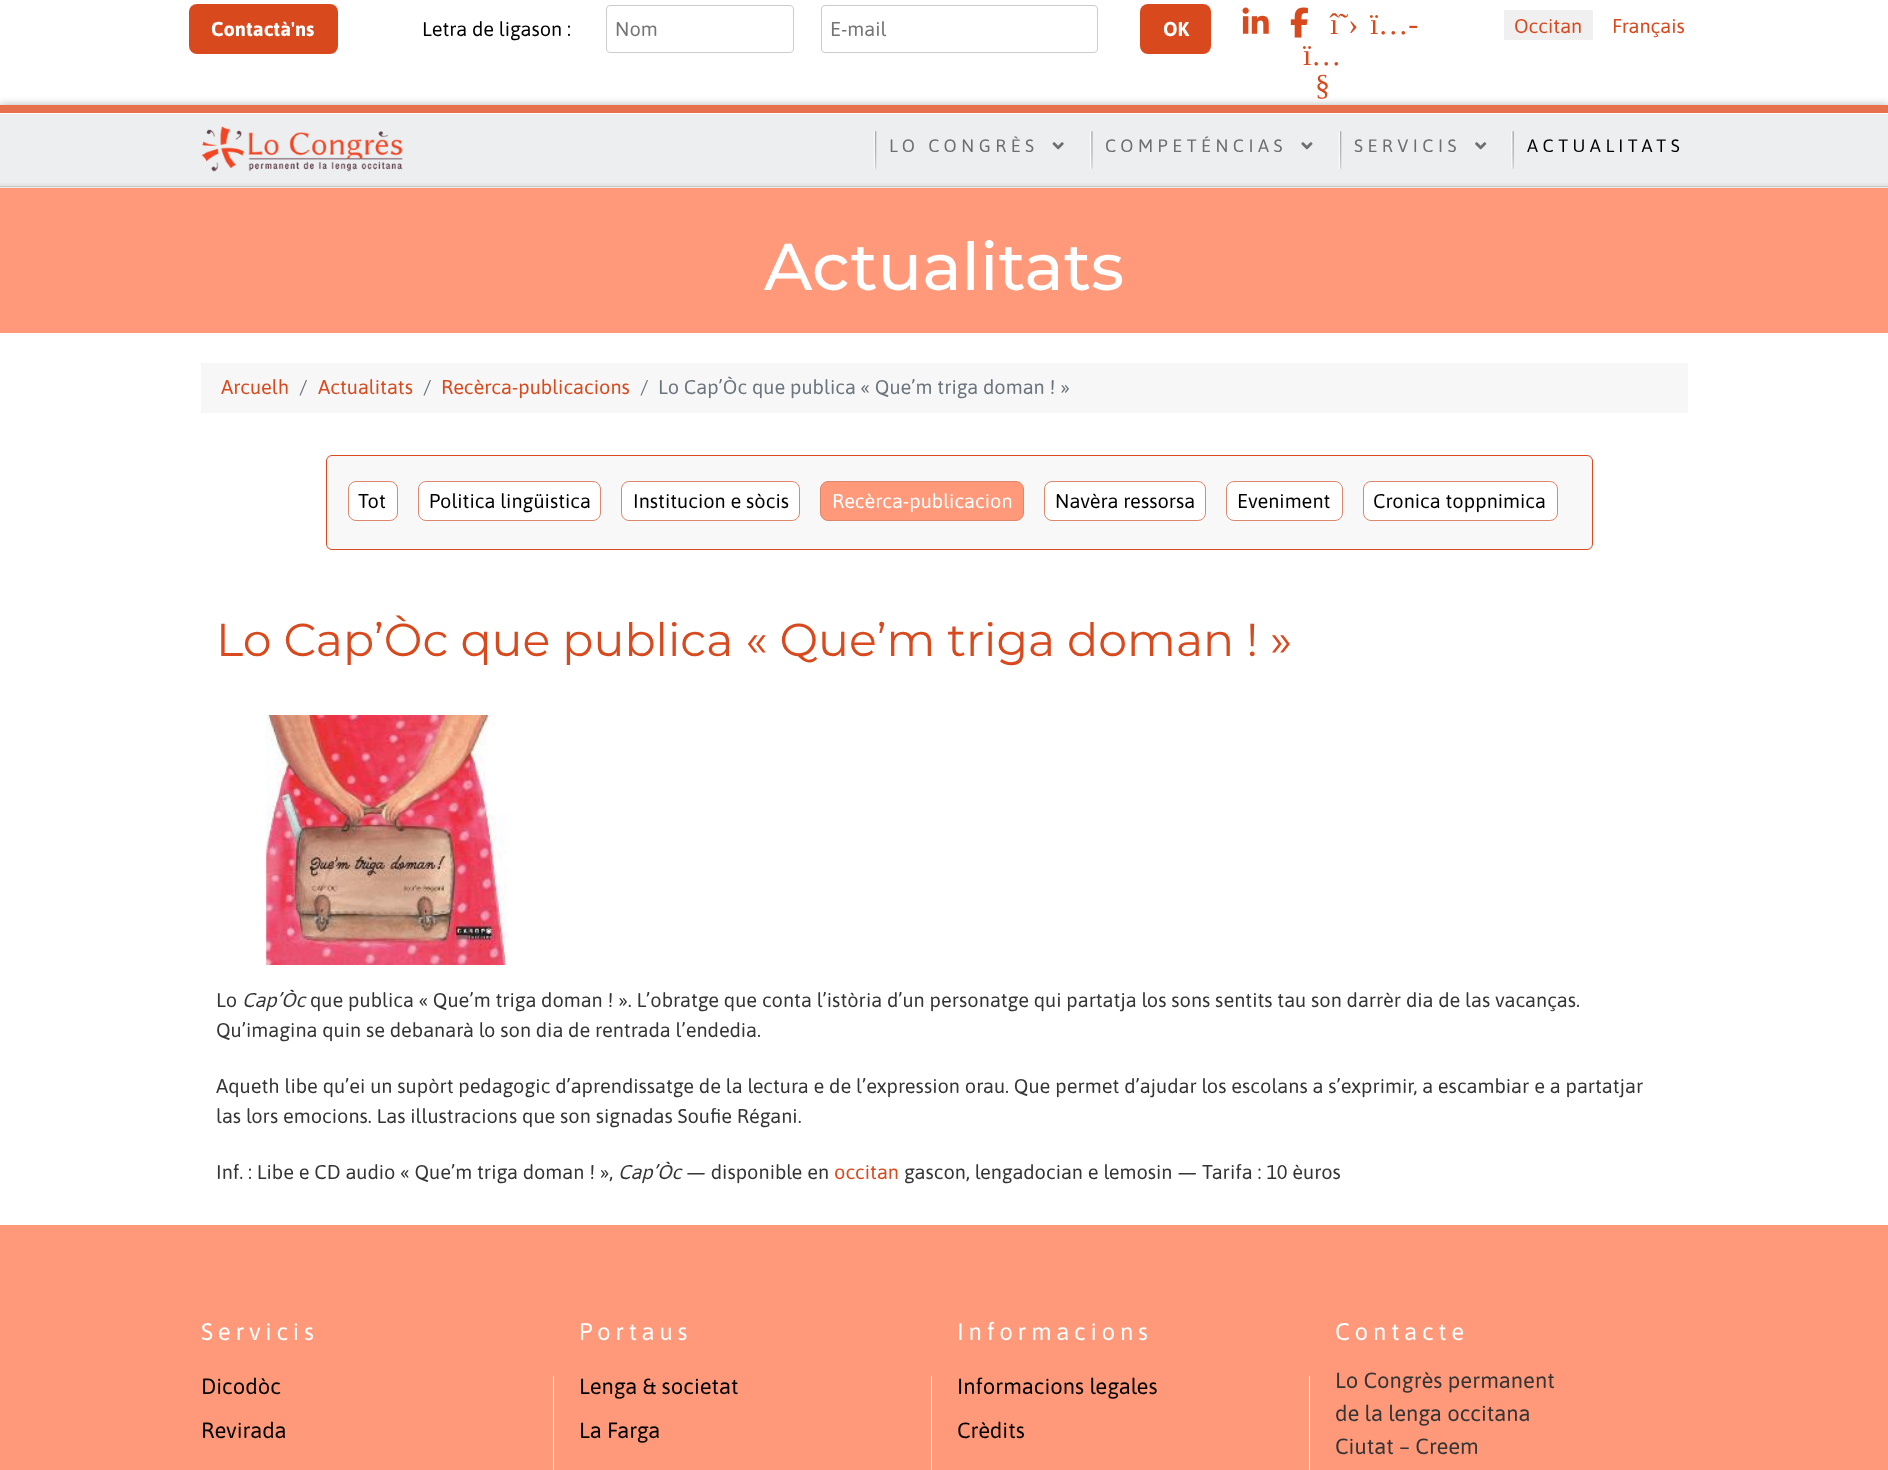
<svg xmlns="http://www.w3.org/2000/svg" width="1888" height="1470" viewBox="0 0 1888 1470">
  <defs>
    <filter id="blur1" x="-50%" y="-200%" width="200%" height="500%"><feGaussianBlur stdDeviation="4"/></filter>
    <linearGradient id="g1" gradientUnits="userSpaceOnUse" x1="944" y1="105" x2="944" y2="186"><stop offset="0" stop-color="#edeef0"/><stop offset="0.95" stop-color="#edeef0"/><stop offset="1" stop-color="#e1e1e1"/></linearGradient>
  </defs>
  <rect width="100%" height="100%" fill="#ffffff"/>
  <rect x="189" y="4" width="149" height="50" rx="8" fill="#d84a1e"/>
  <text x="211" y="36" font-family="Asap" font-size="20" font-weight="bold" fill="#ffffff">Contactà'ns</text>
  <text x="422" y="36" font-family="Asap" font-size="20" fill="#000000">Letra de ligason :</text>
  <rect x="606.5" y="5.5" width="187" height="47" rx="3.5" fill="none" stroke="#cccccc"/>
  <text x="615" y="36" font-family="Asap" font-size="20" fill="#757575">Nom</text>
  <rect x="821.5" y="5.5" width="276" height="47" rx="3.5" fill="none" stroke="#cccccc"/>
  <text x="830" y="36" font-family="Asap" font-size="20" fill="#757575">E-mail</text>
  <rect x="1140" y="4" width="71" height="50" rx="8" fill="#d84a1e"/>
  <text x="1163" y="36" font-family="Asap" font-size="20" font-weight="bold" fill="#ffffff">OK</text>
  <image x="1242" y="7" width="27" height="27" href="img1.png"/>
  <image x="1290" y="7" width="18" height="31" href="img2.png"/>
  <text x="1330" y="34" font-family="Liberation Serif" font-size="30" fill="#d84a1e">î˜›</text>
  <text x="1370" y="34" font-family="Liberation Serif" font-size="30" fill="#d84a1e">ï…-</text>
  <text x="1303" y="65" font-family="Liberation Serif" font-size="30" fill="#d84a1e">ï…</text>
  <rect x="0" y="105" width="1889" height="83" fill="#000000" fill-opacity="0.3" filter="url(#blur1)"/>
  <text x="1315" y="95" font-family="Liberation Serif" font-size="30" fill="#d84a1e">§</text>
  <rect x="1504" y="10" width="89" height="30" fill="#f0f0f0"/>
  <text x="1514" y="33" font-family="Asap" font-size="20" fill="#d84a1e">Occitan</text>
  <text x="1612" y="33" font-family="Asap" font-size="20" fill="#d84a1e">Français</text>
  <rect x="0" y="187" width="1888" height="1" fill="#ebebed"/>
  <rect x="0" y="114" width="1888" height="72" fill="url(#g1)"/>
  <rect x="0" y="113" width="1888" height="1" fill="#ffffff"/>
  <rect x="0" y="105" width="1888" height="8" fill="#e7714d"/>
  <rect x="0" y="186" width="1888" height="1" fill="#c7c7c7"/>
  <image x="201" y="126" width="202" height="46" href="img3.png"/>
  <image x="873" y="131" width="4" height="38" href="img4.png"/>
  <text x="889" y="152" font-family="Asap" font-size="18" letter-spacing="4.5" fill="#6e6e70">LO CONGRÈS</text>
  <image x="1052" y="142" width="12" height="8" href="img5.png"/>
  <image x="1090" y="131" width="3" height="38" href="img6.png"/>
  <text x="1105" y="152" font-family="Asap" font-size="18" letter-spacing="4.5" fill="#6e6e70">COMPETÉNCIAS</text>
  <image x="1301" y="142" width="12" height="8" href="img7.png"/>
  <image x="1338" y="131" width="4" height="38" href="img4.png"/>
  <text x="1354" y="152" font-family="Asap" font-size="18" letter-spacing="4.5" fill="#6e6e70">SERVICIS</text>
  <image x="1475" y="142" width="12" height="8" href="img8.png"/>
  <image x="1511" y="131" width="3" height="38" href="img9.png"/>
  <text x="1527" y="152" font-family="Asap" font-size="18" letter-spacing="4.5" fill="#000000">ACTUALITATS</text>
  <rect x="0" y="188" width="1888" height="145" fill="#ff997a"/>
  <text x="764" y="290" font-family="Montserrat" font-size="66" font-weight="500" fill="#ffffff">Actualitats</text>
  <rect x="201" y="363" width="1487" height="50" fill="#f7f7f7"/>
  <text x="221" y="394" font-family="Asap" font-size="20" fill="#d84a1e">Arcuelh</text>
  <text x="299" y="394" font-family="Asap" font-size="20" fill="#6c757d">/</text>
  <text x="318" y="394" font-family="Asap" font-size="20" fill="#d84a1e">Actualitats</text>
  <text x="423" y="394" font-family="Asap" font-size="20" fill="#6c757d">/</text>
  <text x="441" y="394" font-family="Asap" font-size="20" fill="#d84a1e">Recèrca-publicacions</text>
  <text x="640" y="394" font-family="Asap" font-size="20" fill="#6c757d">/</text>
  <text x="658" y="394" font-family="Asap" font-size="20" fill="#6c757d">Lo Cap’Òc que publica « Que’m triga doman ! »</text>
  <rect x="326.5" y="455.5" width="1266" height="94" rx="5.5" fill="#f8f8f8" stroke="#d84a1e"/>
  <rect x="348.5" y="481.5" width="49" height="39" rx="7.5" fill="#ffffff" stroke="#dd876c"/>
  <text x="358" y="508" font-family="Asap" font-size="20" fill="#000000">Tot</text>
  <rect x="418.5" y="481.5" width="182" height="39" rx="7.5" fill="#ffffff" stroke="#dd876c"/>
  <text x="429" y="508" font-family="Asap" font-size="20" fill="#000000">Politica lingüistica</text>
  <rect x="621.5" y="481.5" width="178" height="39" rx="7.5" fill="#ffffff" stroke="#dd876c"/>
  <text x="633" y="508" font-family="Asap" font-size="20" fill="#000000">Institucion e sòcis</text>
  <rect x="820.5" y="481.5" width="203" height="39" rx="7.5" fill="#ff997a" stroke="#dd876c"/>
  <text x="832" y="508" font-family="Asap" font-size="20" fill="#ffffff">Recèrca-publicacion</text>
  <rect x="1044.5" y="481.5" width="161" height="39" rx="7.5" fill="#ffffff" stroke="#dd876c"/>
  <text x="1055" y="508" font-family="Asap" font-size="20" fill="#000000">Navèra ressorsa</text>
  <rect x="1226.5" y="481.5" width="116" height="39" rx="7.5" fill="#ffffff" stroke="#dd876c"/>
  <text x="1237" y="508" font-family="Asap" font-size="20" fill="#000000">Eveniment</text>
  <rect x="1363.5" y="481.5" width="194" height="39" rx="7.5" fill="#ffffff" stroke="#dd876c"/>
  <text x="1373" y="508" font-family="Asap" font-size="20" fill="#000000">Cronica toppnimica</text>
  <text x="216" y="656" font-family="Montserrat" font-size="46" fill="#d84a1e">Lo Cap’Òc que publica « Que’m triga doman ! »</text>
  <image x="266" y="715" width="241" height="250" href="img10.png"/>
  <text x="216" y="1007" font-family="Asap" font-size="20" fill="#353535">Lo</text>
  <text x="242" y="1007" font-family="Asap" font-size="20" font-style="italic" fill="#353535">Cap’Òc</text>
  <text x="310" y="1007" font-family="Asap" font-size="20" fill="#353535">que publica « Que’m triga doman ! ». L’obratge que conta l’istòria d’un personatge qui partatja los sons sentits tau son darrèr dia de las vacanças.</text>
  <text x="216" y="1037" font-family="Asap" font-size="20" fill="#353535">Qu’imagina quin se debanarà lo son dia de rentrada l’endedia.</text>
  <text x="216" y="1093" font-family="Asap" font-size="20" fill="#353535">Aqueth libe qu’ei un supòrt pedagogic d’aprendissatge de la lectura e de l’expression orau. Que permet d’ajudar los escolans a s’exprimir, a escambiar e a partatjar</text>
  <text x="216" y="1123" font-family="Asap" font-size="20" fill="#353535">las lors emocions. Las illustracions que son signadas Soufie Régani.</text>
  <text x="216" y="1179" font-family="Asap" font-size="20" fill="#353535">Inf. : Libe e CD audio « Que’m triga doman ! »,</text>
  <text x="618" y="1179" font-family="Asap" font-size="20" font-style="italic" fill="#353535">Cap’Òc</text>
  <text x="686" y="1179" font-family="Asap" font-size="20" fill="#353535">— disponible en</text>
  <text x="834" y="1179" font-family="Asap" font-size="20" fill="#d84a1e">occitan</text>
  <text x="904" y="1179" font-family="Asap" font-size="20" fill="#353535">gascon, lengadocian e lemosin — Tarifa : 10 èuros</text>
  <rect x="0" y="1225" width="1888" height="245" fill="#ff997a"/>
  <text x="201" y="1340" font-family="Asap" font-size="24" letter-spacing="4.75" fill="#ffffff">Servicis</text>
  <text x="201" y="1394" font-family="Asap" font-size="22" fill="#000000">Dicodòc</text>
  <text x="201" y="1438" font-family="Asap" font-size="22" fill="#000000">Revirada</text>
  <rect x="553" y="1376" width="1" height="94" fill="#ffffff"/>
  <text x="579" y="1340" font-family="Asap" font-size="24" letter-spacing="4.75" fill="#ffffff">Portaus</text>
  <text x="579" y="1394" font-family="Asap" font-size="22" fill="#000000">Lenga &amp; societat</text>
  <text x="579" y="1438" font-family="Asap" font-size="22" fill="#000000">La Farga</text>
  <rect x="931" y="1376" width="1" height="94" fill="#ffffff"/>
  <text x="957" y="1340" font-family="Asap" font-size="24" letter-spacing="4.75" fill="#ffffff">Informacions</text>
  <text x="957" y="1394" font-family="Asap" font-size="22" fill="#000000">Informacions legales</text>
  <text x="957" y="1438" font-family="Asap" font-size="22" fill="#000000">Crèdits</text>
  <rect x="1309" y="1376" width="1" height="94" fill="#ffffff"/>
  <text x="1335" y="1340" font-family="Asap" font-size="24" letter-spacing="4.75" fill="#ffffff">Contacte</text>
  <text x="1335" y="1388" font-family="Asap" font-size="22" fill="#353535">Lo Congrès permanent</text>
  <text x="1335" y="1421" font-family="Asap" font-size="22" fill="#353535">de la lenga occitana</text>
  <text x="1335" y="1454" font-family="Asap" font-size="22" fill="#353535">Ciutat – Creem</text>
</svg>
